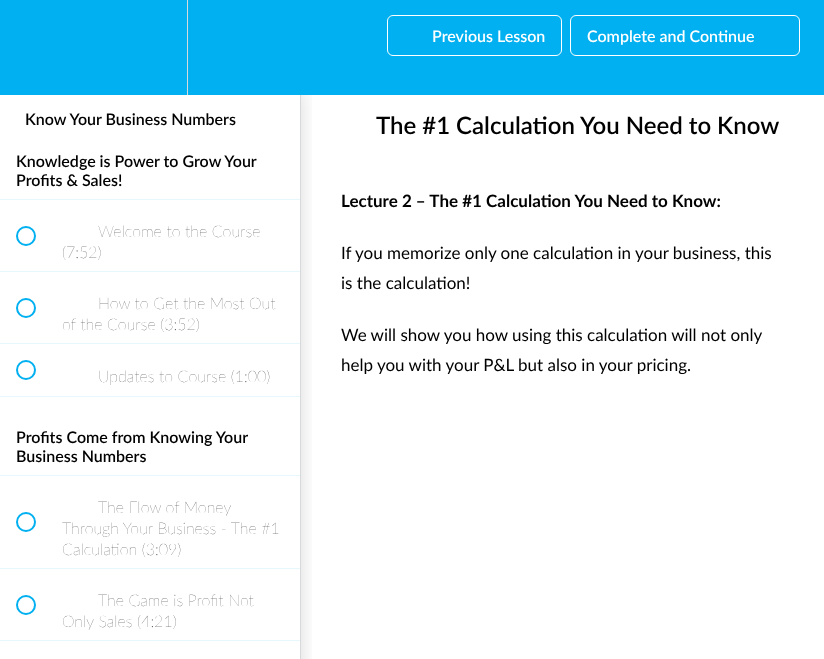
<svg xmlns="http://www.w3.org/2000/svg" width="824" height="659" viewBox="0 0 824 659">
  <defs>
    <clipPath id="clip1"><rect x="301" y="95" width="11" height="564"/></clipPath>
    <filter id="blur1" x="-50%" y="-200%" width="200%" height="500%"><feGaussianBlur stdDeviation="10"/></filter>
  </defs>
  <rect width="100%" height="100%" fill="#ffffff"/>
  <g clip-path="url(#clip1)">
    <rect x="0" y="90" width="301" height="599" fill="#20272d" fill-opacity="0.15" filter="url(#blur1)"/>
  </g>
  <rect x="0" y="0" width="824" height="95" fill="#00b0f0"/>
  <rect x="187" y="0" width="1" height="95" fill="#d7dadb"/>
  <rect x="387.5" y="15.5" width="174" height="40" rx="5.5" fill="none" stroke="#ffffff"/>
  <text x="432" y="42" font-family="Lato" font-size="16" font-weight="600" fill="#ffffff">Previous Lesson</text>
  <rect x="570.5" y="15.5" width="229" height="40" rx="5.5" fill="none" stroke="#ffffff"/>
  <text x="587" y="42" font-family="Lato" font-size="16" font-weight="600" fill="#ffffff">Complete and Continue</text>
  <rect x="300" y="95" width="1" height="564" fill="#d7dadb"/>
  <text x="25" y="125" font-family="Lato" font-size="16" font-weight="600" fill="#000000">Know Your Business Numbers</text>
  <rect x="0" y="199" width="300" height="1" fill="#e6f7fe"/>
  <text x="16" y="167" font-family="Lato" font-size="16" font-weight="600" fill="#000000">Knowledge is Power to Grow Your</text>
  <text x="16" y="186" font-family="Lato" font-size="16" font-weight="600" fill="#000000">Profits &amp; Sales!</text>
  <rect x="0" y="271" width="300" height="1" fill="#e6f7fe"/>
  <circle cx="26" cy="236" r="9" fill="none" stroke="#00b0f0" stroke-width="2"/>
  <text x="98" y="237" font-family="Lato" font-size="16" font-weight="200" fill="#1a1a1a">Welcome to the Course</text>
  <text x="62" y="258" font-family="Lato" font-size="16" font-weight="200" fill="#1a1a1a">(7:52)</text>
  <rect x="0" y="343" width="300" height="1" fill="#e6f7fe"/>
  <circle cx="26" cy="308" r="9" fill="none" stroke="#00b0f0" stroke-width="2"/>
  <text x="98" y="309" font-family="Lato" font-size="16" font-weight="200" fill="#1a1a1a">How to Get the Most Out</text>
  <text x="62" y="330" font-family="Lato" font-size="16" font-weight="200" fill="#1a1a1a">of the Course (3:52)</text>
  <rect x="0" y="396" width="300" height="1" fill="#e6f7fe"/>
  <circle cx="26" cy="370" r="9" fill="none" stroke="#00b0f0" stroke-width="2"/>
  <text x="98" y="382" font-family="Lato" font-size="16" font-weight="200" fill="#1a1a1a">Updates to Course (1:00)</text>
  <rect x="0" y="475" width="300" height="1" fill="#e6f7fe"/>
  <text x="16" y="443" font-family="Lato" font-size="16" font-weight="600" fill="#000000">Profits Come from Knowing Your</text>
  <text x="16" y="462" font-family="Lato" font-size="16" font-weight="600" fill="#000000">Business Numbers</text>
  <rect x="0" y="568" width="300" height="1" fill="#e6f7fe"/>
  <circle cx="26" cy="522" r="9" fill="none" stroke="#00b0f0" stroke-width="2"/>
  <text x="98" y="513" font-family="Lato" font-size="16" font-weight="200" fill="#1a1a1a">The Flow of Money</text>
  <text x="62" y="534" font-family="Lato" font-size="16" font-weight="200" fill="#1a1a1a">Through Your Business - The #1</text>
  <text x="62" y="555" font-family="Lato" font-size="16" font-weight="200" fill="#1a1a1a">Calculation (3:09)</text>
  <rect x="0" y="640" width="300" height="1" fill="#e6f7fe"/>
  <circle cx="26" cy="605" r="9" fill="none" stroke="#00b0f0" stroke-width="2"/>
  <text x="98" y="606" font-family="Lato" font-size="16" font-weight="200" fill="#1a1a1a">The Game is Profit Not</text>
  <text x="62" y="627" font-family="Lato" font-size="16" font-weight="200" fill="#1a1a1a">Only Sales (4:21)</text>
  <text x="376" y="134" font-family="Lato" font-size="24" font-weight="600" fill="#000000">The #1 Calculation You Need to Know</text>
  <text x="341" y="207" font-family="Lato" font-size="17" font-weight="bold" fill="#000000">Lecture 2 – The #1 Calculation You Need to Know:</text>
  <text x="341" y="259" font-family="Lato" font-size="17" fill="#000000">If you memorize only one calculation in your business, this</text>
  <text x="341" y="289" font-family="Lato" font-size="17" fill="#000000">is the calculation!</text>
  <text x="341" y="341" font-family="Lato" font-size="17" fill="#000000">We will show you how using this calculation will not only</text>
  <text x="341" y="371" font-family="Lato" font-size="17" fill="#000000">help you with your P&amp;L but also in your pricing.</text>
</svg>
